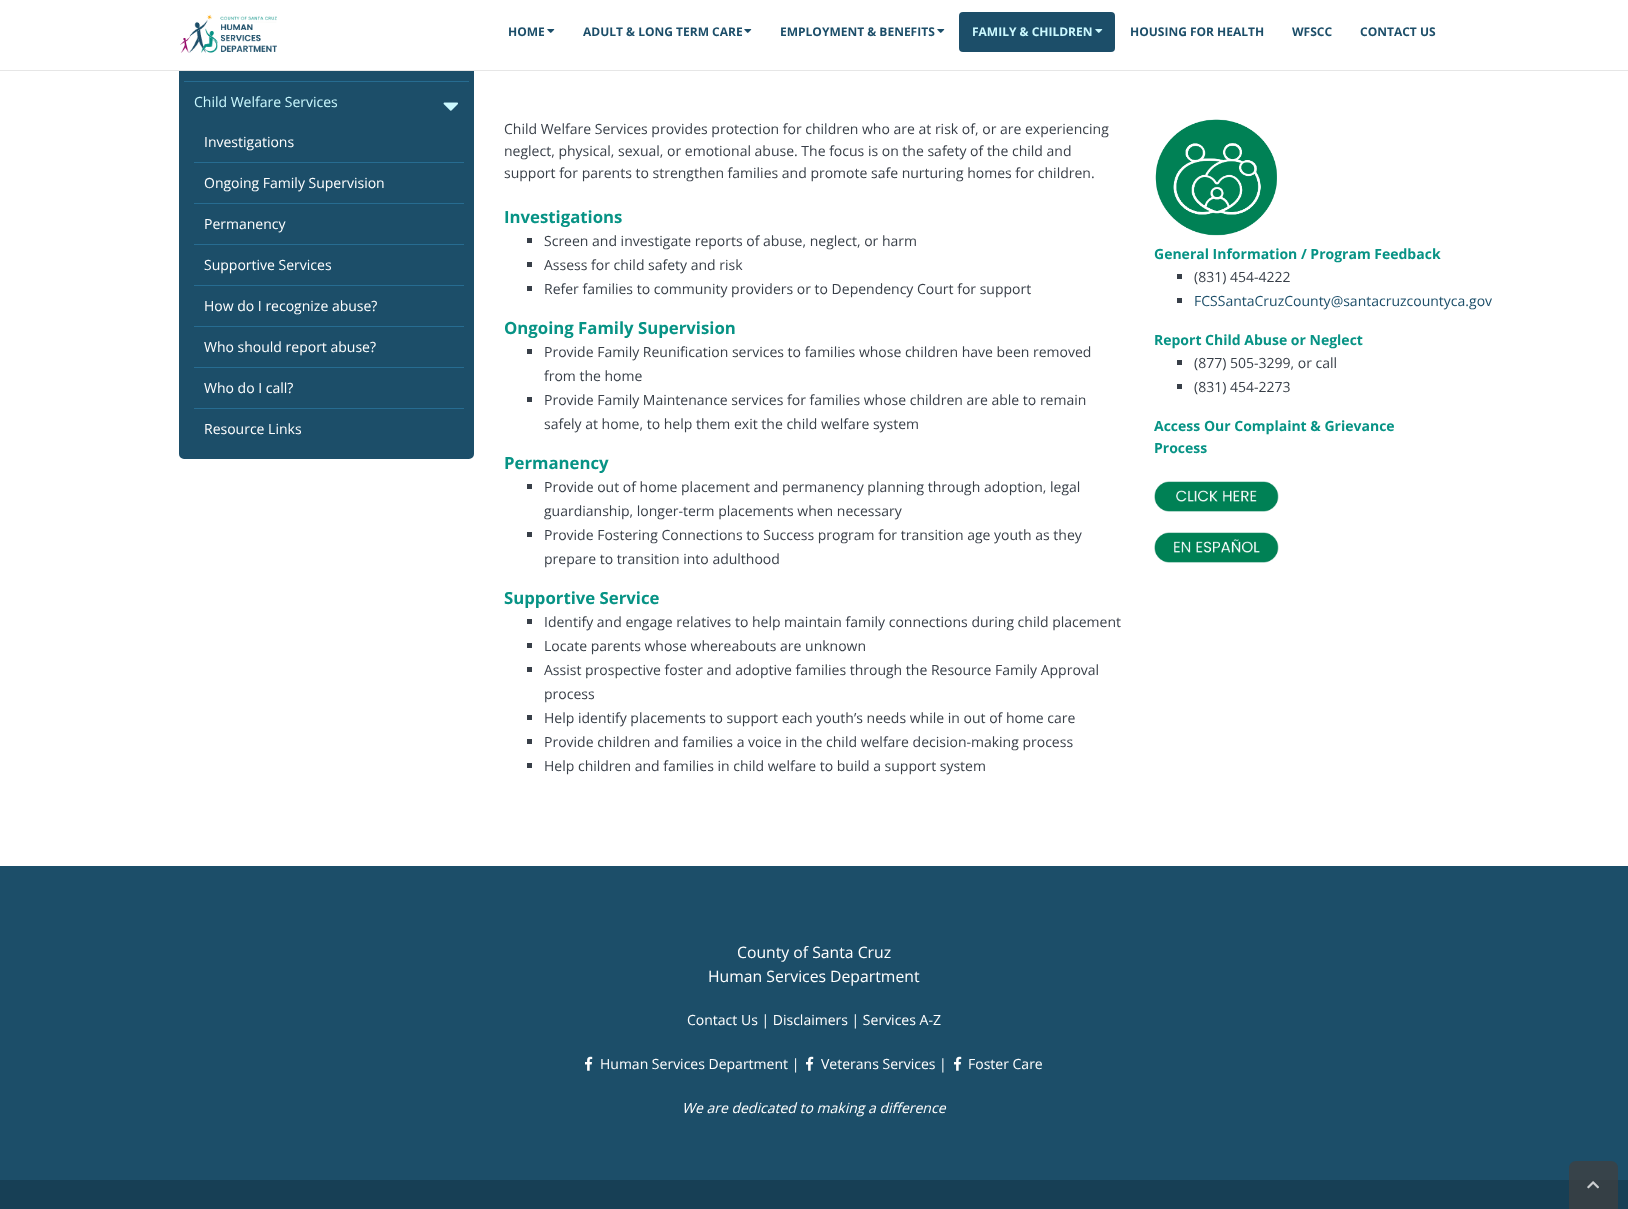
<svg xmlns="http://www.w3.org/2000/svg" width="1628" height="1209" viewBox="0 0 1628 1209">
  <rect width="100%" height="100%" fill="#ffffff"/>
  <rect x="181.5" y="38.5" width="290" height="418" rx="2.5" fill="#1c4e69" stroke="#1c4e69" stroke-width="5"/>
  <rect x="179" y="36" width="295" height="34" fill="#ffffff"/>
  <rect x="0" y="70" width="1628" height="1" fill="#e6e6e6"/>
  <image x="180" y="14" width="97" height="39" href="img1.png"/>
  <text x="508" y="36" font-family="Open Sans" font-size="12" font-weight="bold" fill="#1c4e69">HOME</text>
  <image x="547" y="29" width="8" height="4" href="img2.png"/>
  <text x="583" y="36" font-family="Open Sans" font-size="12" font-weight="bold" fill="#1c4e69">ADULT &amp; LONG TERM CARE</text>
  <image x="744" y="29" width="8" height="4" href="img2.png"/>
  <text x="780" y="36" font-family="Open Sans" font-size="12" font-weight="bold" fill="#1c4e69">EMPLOYMENT &amp; BENEFITS</text>
  <image x="937" y="29" width="8" height="4" href="img2.png"/>
  <rect x="959" y="12" width="156" height="40" rx="4" fill="#1c4e69"/>
  <text x="972" y="36" font-family="Open Sans" font-size="12" font-weight="bold" fill="#cbf9ff">FAMILY &amp; CHILDREN</text>
  <image x="1095" y="29" width="8" height="4" href="img3.png"/>
  <text x="1130" y="36" font-family="Open Sans" font-size="12" font-weight="bold" fill="#1c4e69">HOUSING FOR HEALTH</text>
  <text x="1292" y="36" font-family="Open Sans" font-size="12" font-weight="bold" fill="#1c4e69">WFSCC</text>
  <text x="1360" y="36" font-family="Open Sans" font-size="12" font-weight="bold" fill="#1c4e69">CONTACT US</text>
  <rect x="184" y="81" width="285" height="1" fill="#276c91"/>
  <text x="194" y="107" font-family="Open Sans" font-size="14" fill="#cbf9ff">Child Welfare Services</text>
  <image x="443" y="102" width="15" height="9" href="img4.png"/>
  <rect x="194" y="162" width="270" height="1" fill="#276c91"/>
  <text x="204" y="147" font-family="Open Sans" font-size="14" fill="#ffffff">Investigations</text>
  <rect x="194" y="203" width="270" height="1" fill="#276c91"/>
  <text x="204" y="188" font-family="Open Sans" font-size="14" fill="#ffffff">Ongoing Family Supervision</text>
  <rect x="194" y="244" width="270" height="1" fill="#276c91"/>
  <text x="204" y="229" font-family="Open Sans" font-size="14" fill="#ffffff">Permanency</text>
  <rect x="194" y="285" width="270" height="1" fill="#276c91"/>
  <text x="204" y="270" font-family="Open Sans" font-size="14" fill="#ffffff">Supportive Services</text>
  <rect x="194" y="326" width="270" height="1" fill="#276c91"/>
  <text x="204" y="311" font-family="Open Sans" font-size="14" fill="#ffffff">How do I recognize abuse?</text>
  <rect x="194" y="367" width="270" height="1" fill="#276c91"/>
  <text x="204" y="352" font-family="Open Sans" font-size="14" fill="#ffffff">Who should report abuse?</text>
  <rect x="194" y="408" width="270" height="1" fill="#276c91"/>
  <text x="204" y="393" font-family="Open Sans" font-size="14" fill="#ffffff">Who do I call?</text>
  <text x="204" y="434" font-family="Open Sans" font-size="14" fill="#ffffff">Resource Links</text>
  <text x="504" y="134" font-family="Open Sans" font-size="14" fill="#383f48">Child Welfare Services provides protection for children who are at risk of, or are experiencing</text>
  <text x="504" y="156" font-family="Open Sans" font-size="14" fill="#383f48">neglect, physical, sexual, or emotional abuse. The focus is on the safety of the child and</text>
  <text x="504" y="178" font-family="Open Sans" font-size="14" fill="#383f48">support for parents to strengthen families and promote safe nurturing homes for children.</text>
  <text x="504" y="223" font-family="Open Sans" font-size="16.75" font-weight="bold" fill="#079385">Investigations</text>
  <rect x="527" y="238" width="5" height="5" fill="#383f48"/>
  <text x="544" y="246" font-family="Open Sans" font-size="14" fill="#383f48">Screen and investigate reports of abuse, neglect, or harm</text>
  <rect x="527" y="262" width="5" height="5" fill="#383f48"/>
  <text x="544" y="270" font-family="Open Sans" font-size="14" fill="#383f48">Assess for child safety and risk</text>
  <rect x="527" y="286" width="5" height="5" fill="#383f48"/>
  <text x="544" y="294" font-family="Open Sans" font-size="14" fill="#383f48">Refer families to community providers or to Dependency Court for support</text>
  <text x="504" y="334" font-family="Open Sans" font-size="16.75" font-weight="bold" fill="#079385">Ongoing Family Supervision</text>
  <rect x="527" y="349" width="5" height="5" fill="#383f48"/>
  <text x="544" y="357" font-family="Open Sans" font-size="14" fill="#383f48">Provide Family Reunification services to families whose children have been removed</text>
  <text x="544" y="381" font-family="Open Sans" font-size="14" fill="#383f48">from the home</text>
  <rect x="527" y="397" width="5" height="5" fill="#383f48"/>
  <text x="544" y="405" font-family="Open Sans" font-size="14" fill="#383f48">Provide Family Maintenance services for families whose children are able to remain</text>
  <text x="544" y="429" font-family="Open Sans" font-size="14" fill="#383f48">safely at home, to help them exit the child welfare system</text>
  <text x="504" y="469" font-family="Open Sans" font-size="16.75" font-weight="bold" fill="#079385">Permanency</text>
  <rect x="527" y="484" width="5" height="5" fill="#383f48"/>
  <text x="544" y="492" font-family="Open Sans" font-size="14" fill="#383f48">Provide out of home placement and permanency planning through adoption, legal</text>
  <text x="544" y="516" font-family="Open Sans" font-size="14" fill="#383f48">guardianship, longer-term placements when necessary</text>
  <rect x="527" y="532" width="5" height="5" fill="#383f48"/>
  <text x="544" y="540" font-family="Open Sans" font-size="14" fill="#383f48">Provide Fostering Connections to Success program for transition age youth as they</text>
  <text x="544" y="564" font-family="Open Sans" font-size="14" fill="#383f48">prepare to transition into adulthood</text>
  <text x="504" y="604" font-family="Open Sans" font-size="16.75" font-weight="bold" fill="#079385">Supportive Service</text>
  <rect x="527" y="619" width="5" height="5" fill="#383f48"/>
  <text x="544" y="627" font-family="Open Sans" font-size="14" fill="#383f48">Identify and engage relatives to help maintain family connections during child placement</text>
  <rect x="527" y="643" width="5" height="5" fill="#383f48"/>
  <text x="544" y="651" font-family="Open Sans" font-size="14" fill="#383f48">Locate parents whose whereabouts are unknown</text>
  <rect x="527" y="667" width="5" height="5" fill="#383f48"/>
  <text x="544" y="675" font-family="Open Sans" font-size="14" fill="#383f48">Assist prospective foster and adoptive families through the Resource Family Approval</text>
  <text x="544" y="699" font-family="Open Sans" font-size="14" fill="#383f48">process</text>
  <rect x="527" y="715" width="5" height="5" fill="#383f48"/>
  <text x="544" y="723" font-family="Open Sans" font-size="14" fill="#383f48">Help identify placements to support each youth’s needs while in out of home care</text>
  <rect x="527" y="739" width="5" height="5" fill="#383f48"/>
  <text x="544" y="747" font-family="Open Sans" font-size="14" fill="#383f48">Provide children and families a voice in the child welfare decision-making process</text>
  <rect x="527" y="763" width="5" height="5" fill="#383f48"/>
  <text x="544" y="771" font-family="Open Sans" font-size="14" fill="#383f48">Help children and families in child welfare to build a support system</text>
  <image x="1155" y="119" width="122" height="117" href="img5.png"/>
  <text x="1154" y="259" font-family="Open Sans" font-size="14" font-weight="bold" fill="#079385">General Information / Program Feedback</text>
  <rect x="1177" y="274" width="5" height="5" fill="#383f48"/>
  <text x="1194" y="282" font-family="Open Sans" font-size="14" fill="#383f48">(831) 454-4222</text>
  <rect x="1177" y="298" width="5" height="5" fill="#383f48"/>
  <text x="1194" y="306" font-family="Open Sans" font-size="14" fill="#1c4e69">FCSSantaCruzCounty@santacruzcountyca.gov</text>
  <text x="1154" y="345" font-family="Open Sans" font-size="14" font-weight="bold" fill="#079385">Report Child Abuse or Neglect</text>
  <rect x="1177" y="360" width="5" height="5" fill="#383f48"/>
  <text x="1194" y="368" font-family="Open Sans" font-size="14" fill="#383f48">(877) 505-3299, or call</text>
  <rect x="1177" y="384" width="5" height="5" fill="#383f48"/>
  <text x="1194" y="392" font-family="Open Sans" font-size="14" fill="#383f48">(831) 454-2273</text>
  <text x="1154" y="431" font-family="Open Sans" font-size="14" font-weight="bold" fill="#079385">Access Our Complaint &amp; Grievance</text>
  <text x="1154" y="453" font-family="Open Sans" font-size="14" font-weight="bold" fill="#079385">Process</text>
  <image x="1154" y="481" width="125" height="31" href="img6.png"/>
  <image x="1154" y="532" width="125" height="31" href="img7.png"/>
  <rect x="0" y="866" width="1628" height="314" fill="#1c4e69"/>
  <text x="737" y="958" font-family="Open Sans" font-size="15.75" fill="#ffffff">County of Santa Cruz</text>
  <text x="708" y="982" font-family="Open Sans" font-size="15.75" fill="#ffffff">Human Services Department</text>
  <text x="687" y="1025" font-family="Open Sans" font-size="14" fill="#ffffff">Contact Us | Disclaimers | Services A-Z</text>
  <image x="585" y="1056" width="8" height="15" href="img8.png"/>
  <text x="600" y="1069" font-family="Open Sans" font-size="14" fill="#ffffff">Human Services Department |</text>
  <image x="806" y="1056" width="8" height="15" href="img8.png"/>
  <text x="821" y="1069" font-family="Open Sans" font-size="14" fill="#ffffff">Veterans Services |</text>
  <image x="954" y="1056" width="8" height="15" href="img8.png"/>
  <text x="968" y="1069" font-family="Open Sans" font-size="14" fill="#ffffff">Foster Care</text>
  <text x="682" y="1113" font-family="Open Sans" font-size="14" font-style="italic" fill="#ffffff">We are dedicated to making a difference</text>
  <rect x="0" y="1180" width="1628" height="29" fill="#173f55"/>
  <path d="M1576 1161H1611C1615 1161 1618 1164 1618 1168V1209H1569V1168C1569 1164 1572 1161 1576 1161Z" fill="#404040" fill-opacity="0.75"/>
  <image x="1587" y="1181" width="12" height="8" href="img9.png"/>
</svg>
